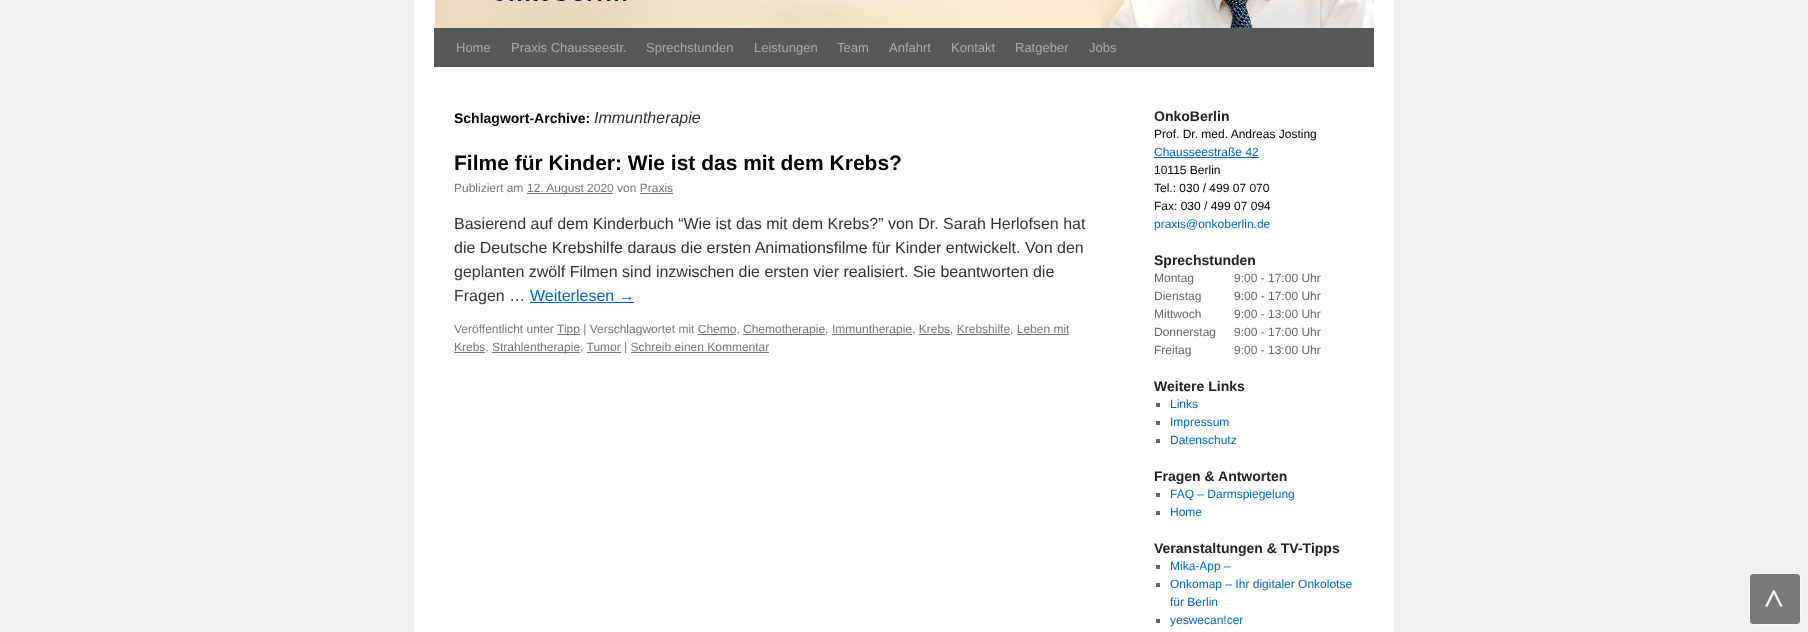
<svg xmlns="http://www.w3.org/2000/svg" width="1808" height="632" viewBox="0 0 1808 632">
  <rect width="100%" height="100%" fill="#f1f1f1"/>
  <rect x="414" y="0" width="980" height="632" fill="#ffffff"/>
  <rect x="434" y="28" width="940" height="39" fill="#575857"/>
  <image x="434" y="0" width="940" height="28" href="img1.png"/>
  <text x="456" y="52" font-family="Liberation Sans" font-size="13" fill="#aaaaaa">Home</text>
  <text x="511" y="52" font-family="Liberation Sans" font-size="13" fill="#aaaaaa">Praxis Chausseestr.</text>
  <text x="646" y="52" font-family="Liberation Sans" font-size="13" fill="#aaaaaa">Sprechstunden</text>
  <text x="754" y="52" font-family="Liberation Sans" font-size="13" fill="#aaaaaa">Leistungen</text>
  <text x="837" y="52" font-family="Liberation Sans" font-size="13" fill="#aaaaaa">Team</text>
  <text x="889" y="52" font-family="Liberation Sans" font-size="13" fill="#aaaaaa">Anfahrt</text>
  <text x="951" y="52" font-family="Liberation Sans" font-size="13" fill="#aaaaaa">Kontakt</text>
  <text x="1015" y="52" font-family="Liberation Sans" font-size="13" fill="#aaaaaa">Ratgeber</text>
  <text x="1089" y="52" font-family="Liberation Sans" font-size="13" fill="#aaaaaa">Jobs</text>
  <text x="454" y="123" font-family="Liberation Sans" font-size="14" font-weight="bold" fill="#000000">Schlagwort-Archive:</text>
  <text x="594" y="123" font-family="Liberation Sans" font-size="16" font-style="italic" fill="#333333">Immuntherapie</text>
  <text x="454" y="170" font-family="Liberation Sans" font-size="21" font-weight="bold" fill="#000000">Filme für Kinder: Wie ist das mit dem Krebs?</text>
  <text x="454" y="192" font-family="Liberation Sans" font-size="12" fill="#777777">Publiziert am</text>
  <rect x="527" y="193" width="86" height="1" fill="#777777"/>
  <text x="527" y="192" font-family="Liberation Sans" font-size="12" fill="#777777">12. August 2020 von Praxis</text>
  <rect x="640" y="193" width="33" height="1" fill="#777777"/>
  <text x="454" y="229" font-family="Liberation Sans" font-size="16" fill="#333333">Basierend auf dem Kinderbuch “Wie ist das mit dem Krebs?” von Dr. Sarah Herlofsen hat</text>
  <text x="454" y="253" font-family="Liberation Sans" font-size="16" fill="#333333">die Deutsche Krebshilfe daraus die ersten Animationsfilme für Kinder entwickelt. Von den</text>
  <text x="454" y="277" font-family="Liberation Sans" font-size="16" fill="#333333">geplanten zwölf Filmen sind inzwischen die ersten vier realisiert. Sie beantworten die</text>
  <text x="454" y="301" font-family="Liberation Sans" font-size="16" fill="#333333">Fragen …</text>
  <text x="530" y="301" font-family="Liberation Sans" font-size="16" fill="#0066cc">Weiterlesen →</text>
  <rect x="530" y="302" width="104" height="1" fill="#0066cc"/>
  <text x="454" y="333" font-family="Liberation Sans" font-size="12" fill="#777777">Veröffentlicht unter</text>
  <rect x="557" y="334" width="23" height="1" fill="#777777"/>
  <text x="557" y="333" font-family="Liberation Sans" font-size="12" fill="#777777">Tipp | Verschlagwortet mit Chemo,</text>
  <rect x="743" y="334" width="82" height="1" fill="#777777"/>
  <text x="743" y="333" font-family="Liberation Sans" font-size="12" fill="#777777">Chemotherapie,</text>
  <rect x="698" y="334" width="38" height="1" fill="#777777"/>
  <rect x="832" y="334" width="80" height="1" fill="#777777"/>
  <text x="832" y="333" font-family="Liberation Sans" font-size="12" fill="#777777">Immuntherapie, Krebs, Krebshilfe, Leben mit</text>
  <rect x="919" y="334" width="31" height="1" fill="#777777"/>
  <rect x="957" y="334" width="53" height="1" fill="#777777"/>
  <rect x="1017" y="334" width="52" height="1" fill="#777777"/>
  <rect x="454" y="352" width="31" height="1" fill="#777777"/>
  <text x="454" y="351" font-family="Liberation Sans" font-size="12" fill="#777777">Krebs,</text>
  <rect x="492" y="352" width="88" height="1" fill="#777777"/>
  <text x="492" y="351" font-family="Liberation Sans" font-size="12" fill="#777777">Strahlentherapie, Tumor | Schreib einen Kommentar</text>
  <rect x="587" y="352" width="34" height="1" fill="#777777"/>
  <rect x="631" y="352" width="138" height="1" fill="#777777"/>
  <text x="1154" y="121" font-family="Liberation Sans" font-size="14" font-weight="bold" fill="#222222">OnkoBerlin</text>
  <text x="1154" y="138" font-family="Liberation Sans" font-size="12" fill="#000000">Prof. Dr. med. Andreas Josting</text>
  <text x="1154" y="156" font-family="Liberation Sans" font-size="12" fill="#0066cc">Chausseestraße 42</text>
  <rect x="1154" y="157" width="105" height="1" fill="#0066cc"/>
  <text x="1154" y="174" font-family="Liberation Sans" font-size="12" fill="#000000">10115 Berlin</text>
  <text x="1154" y="192" font-family="Liberation Sans" font-size="12" fill="#000000">Tel.: 030 / 499 07 070</text>
  <text x="1154" y="210" font-family="Liberation Sans" font-size="12" fill="#000000">Fax: 030 / 499 07 094</text>
  <text x="1154" y="228" font-family="Liberation Sans" font-size="12" fill="#0066cc">praxis@onkoberlin.de</text>
  <text x="1154" y="265" font-family="Liberation Sans" font-size="14" font-weight="bold" fill="#222222">Sprechstunden</text>
  <text x="1154" y="282" font-family="Liberation Sans" font-size="12" fill="#666666">Montag</text>
  <text x="1234" y="282" font-family="Liberation Sans" font-size="12" fill="#666666">9:00 - 17:00 Uhr</text>
  <text x="1154" y="300" font-family="Liberation Sans" font-size="12" fill="#666666">Dienstag</text>
  <text x="1234" y="300" font-family="Liberation Sans" font-size="12" fill="#666666">9:00 - 17:00 Uhr</text>
  <text x="1154" y="318" font-family="Liberation Sans" font-size="12" fill="#666666">Mittwoch</text>
  <text x="1234" y="318" font-family="Liberation Sans" font-size="12" fill="#666666">9:00 - 13:00 Uhr</text>
  <text x="1154" y="336" font-family="Liberation Sans" font-size="12" fill="#666666">Donnerstag</text>
  <text x="1234" y="336" font-family="Liberation Sans" font-size="12" fill="#666666">9:00 - 17:00 Uhr</text>
  <text x="1154" y="354" font-family="Liberation Sans" font-size="12" fill="#666666">Freitag</text>
  <text x="1234" y="354" font-family="Liberation Sans" font-size="12" fill="#666666">9:00 - 13:00 Uhr</text>
  <text x="1154" y="391" font-family="Liberation Sans" font-size="14" font-weight="bold" fill="#222222">Weitere Links</text>
  <rect x="1156" y="403" width="4" height="4" fill="#666666"/>
  <text x="1170" y="408" font-family="Liberation Sans" font-size="12" fill="#0066cc">Links</text>
  <rect x="1156" y="421" width="4" height="4" fill="#666666"/>
  <text x="1170" y="426" font-family="Liberation Sans" font-size="12" fill="#0066cc">Impressum</text>
  <rect x="1156" y="439" width="4" height="4" fill="#666666"/>
  <text x="1170" y="444" font-family="Liberation Sans" font-size="12" fill="#0066cc">Datenschutz</text>
  <text x="1154" y="481" font-family="Liberation Sans" font-size="14" font-weight="bold" fill="#222222">Fragen &amp; Antworten</text>
  <rect x="1156" y="493" width="4" height="4" fill="#666666"/>
  <text x="1170" y="498" font-family="Liberation Sans" font-size="12" fill="#0066cc">FAQ – Darmspiegelung</text>
  <rect x="1156" y="511" width="4" height="4" fill="#666666"/>
  <text x="1170" y="516" font-family="Liberation Sans" font-size="12" fill="#0066cc">Home</text>
  <text x="1154" y="553" font-family="Liberation Sans" font-size="14" font-weight="bold" fill="#222222">Veranstaltungen &amp; TV-Tipps</text>
  <rect x="1156" y="565" width="4" height="4" fill="#666666"/>
  <text x="1170" y="570" font-family="Liberation Sans" font-size="12" fill="#0066cc">Mika-App –</text>
  <rect x="1156" y="583" width="4" height="4" fill="#666666"/>
  <text x="1170" y="588" font-family="Liberation Sans" font-size="12" fill="#0066cc">Onkomap – Ihr digitaler Onkolotse</text>
  <text x="1170" y="606" font-family="Liberation Sans" font-size="12" fill="#0066cc">für Berlin</text>
  <rect x="1156" y="619" width="4" height="4" fill="#666666"/>
  <text x="1170" y="624" font-family="Liberation Sans" font-size="12" fill="#0066cc">yeswecan!cer</text>
  <rect x="1749.5" y="573.5" width="51" height="51" rx="3.5" fill="#797979" stroke="#f8f8f8"/>
  <text x="1764" y="610" font-family="Liberation Serif" font-size="35" font-weight="bold" fill="#f8f8f8">˄</text>
</svg>
